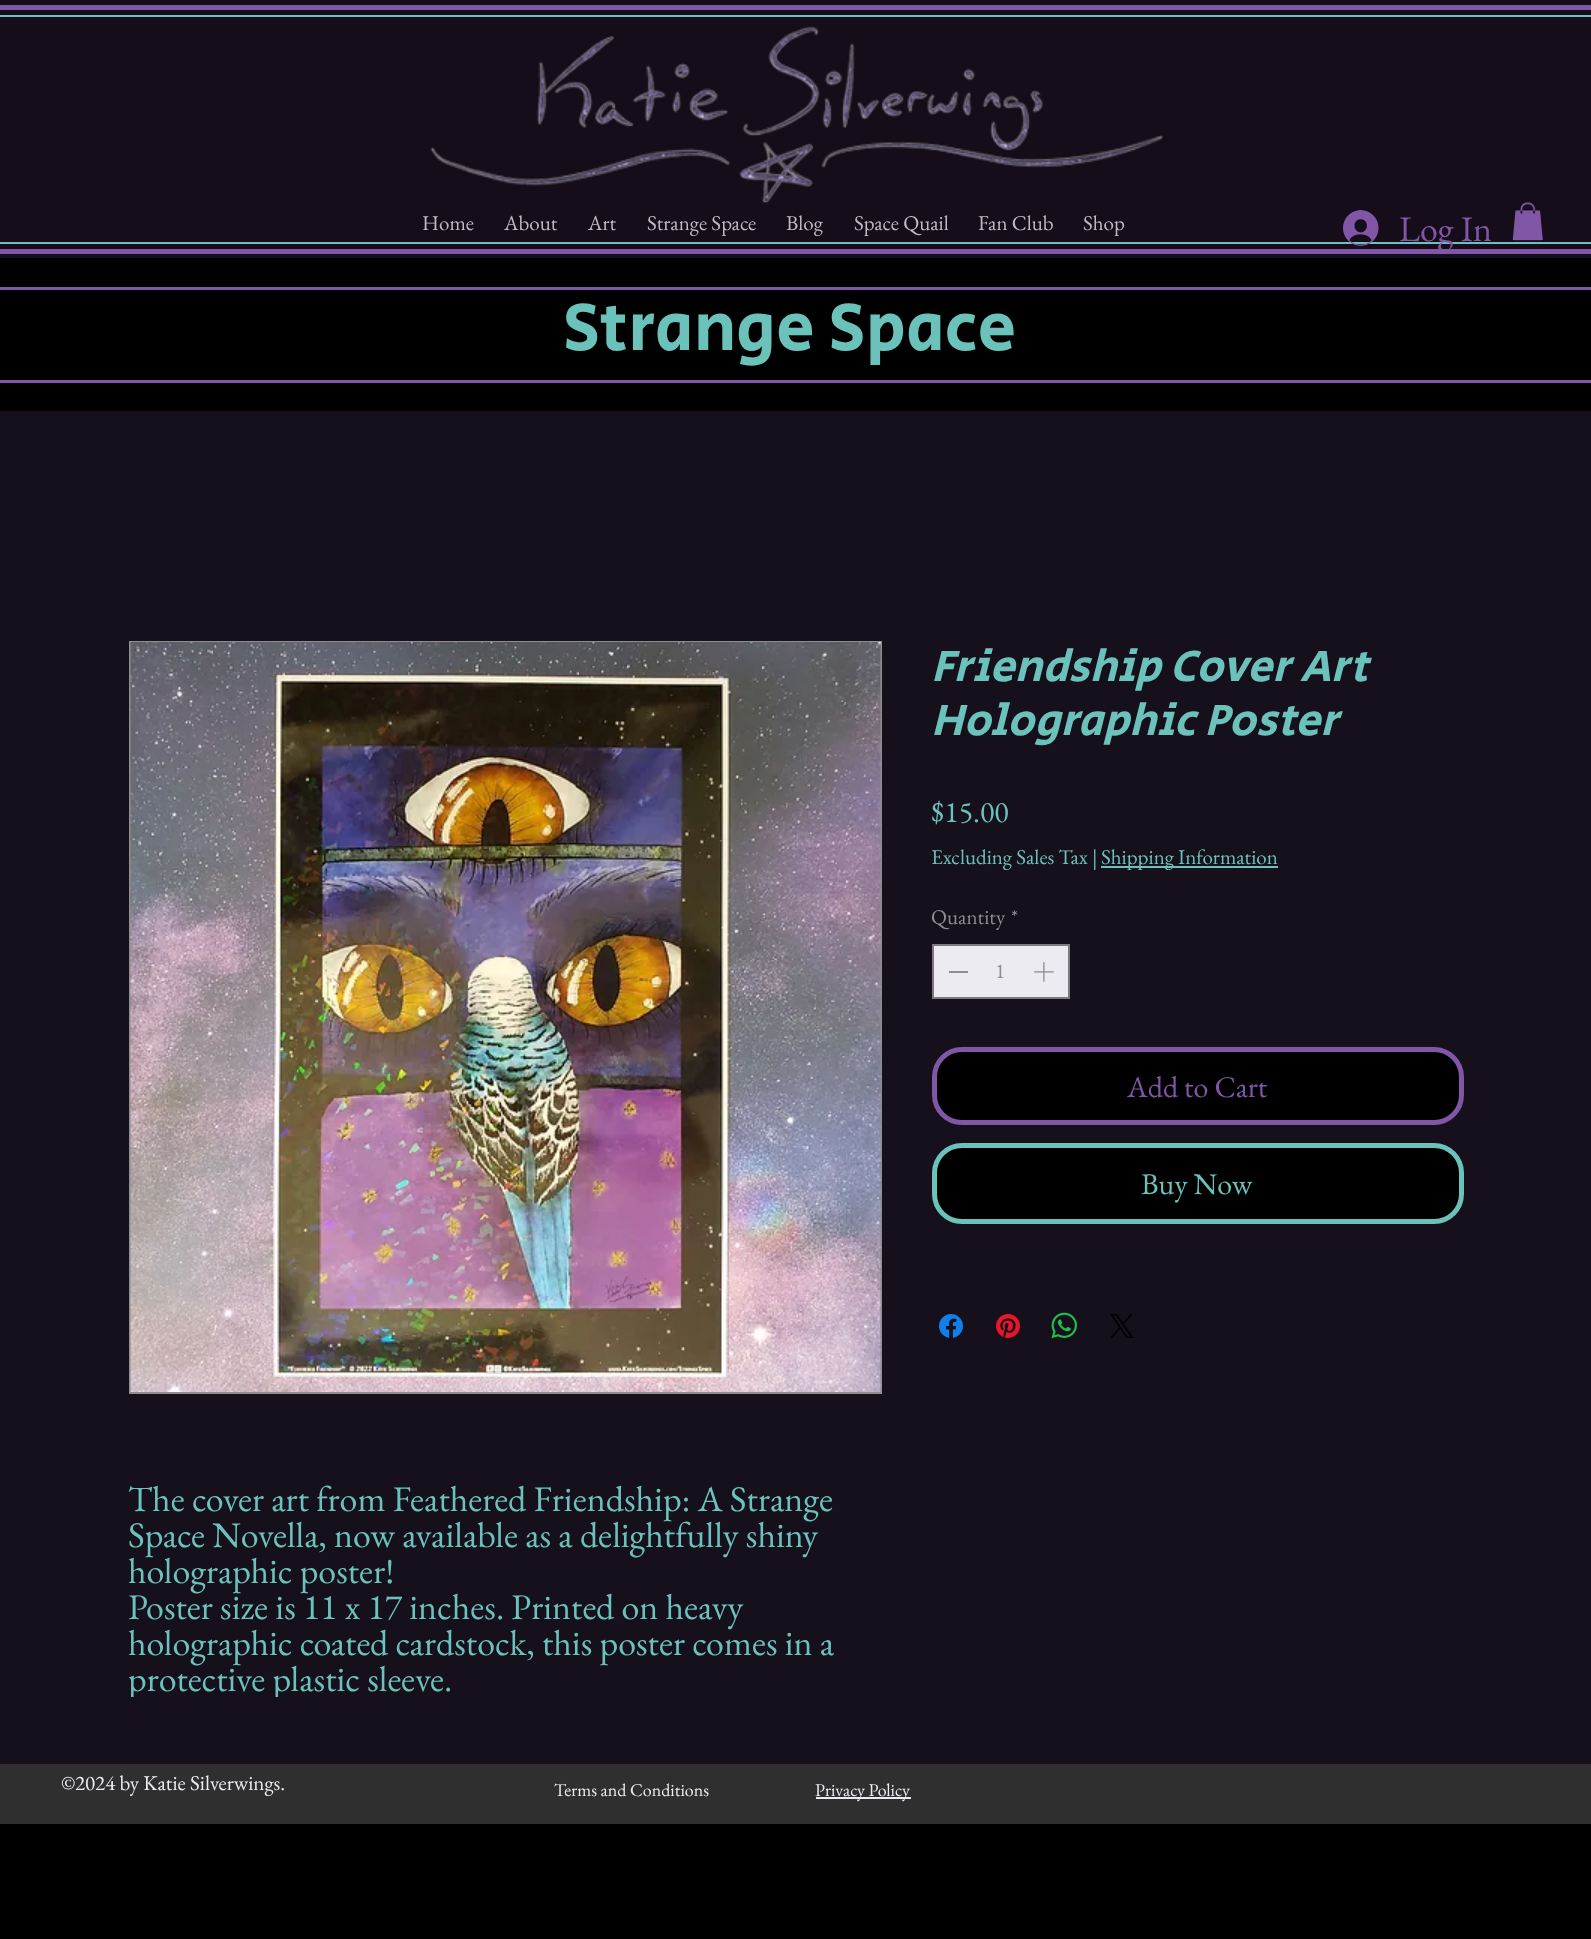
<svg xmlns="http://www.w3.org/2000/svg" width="1591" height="1939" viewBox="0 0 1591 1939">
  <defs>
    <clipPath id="clip1"><rect x="129" y="1481" width="750" height="216"/></clipPath>
  </defs>
  <rect width="100%" height="100%" fill="#000000"/>
  <rect x="0" y="0" width="1591" height="258" fill="#150e1a"/>
  <rect x="0" y="5" width="1591" height="5" fill="#8156a6"/>
  <rect x="0" y="249" width="1591" height="5" fill="#8156a6"/>
  <rect x="0" y="15" width="1591" height="2" fill="#6ac2bb"/>
  <rect x="0" y="242" width="1591" height="2" fill="#6ac2bb"/>
  <image x="430" y="26" width="733" height="177" href="img1.png"/>
  <text x="422" y="230" font-family="EB Garamond" font-size="21" fill="#bebcc2">Home</text>
  <text x="504" y="230" font-family="EB Garamond" font-size="21" fill="#bebcc2">About</text>
  <text x="588" y="230" font-family="EB Garamond" font-size="21" fill="#bebcc2">Art</text>
  <text x="647" y="230" font-family="EB Garamond" font-size="21" fill="#bebcc2">Strange Space</text>
  <text x="786" y="230" font-family="EB Garamond" font-size="21" fill="#bebcc2">Blog</text>
  <text x="854" y="230" font-family="EB Garamond" font-size="21" fill="#bebcc2">Space Quail</text>
  <text x="978" y="230" font-family="EB Garamond" font-size="21" fill="#bebcc2">Fan Club</text>
  <text x="1083" y="230" font-family="EB Garamond" font-size="21" fill="#bebcc2">Shop</text>
  <image x="1343" y="210" width="36" height="36" href="img2.png"/>
  <text x="1399" y="241" font-family="EB Garamond" font-size="36" fill="#8156a6">Log In</text>
  <image x="1512" y="202" width="31" height="39" href="img3.png"/>
  <rect x="0" y="287" width="1591" height="3" fill="#8156a6"/>
  <text x="563" y="350" font-family="Secular One" font-size="69" fill="#6ac2bb">Strange Space</text>
  <rect x="0" y="380" width="1591" height="3" fill="#8156a6"/>
  <rect x="0" y="411" width="1591" height="1353" fill="#160f1c"/>
  <text x="931" y="681" font-family="Secular One" font-size="45" font-style="italic" fill="#6ac2bb">Friendship Cover Art</text>
  <text x="931" y="735" font-family="Secular One" font-size="45" font-style="italic" fill="#6ac2bb">Holographic Poster</text>
  <text x="931" y="822" font-family="EB Garamond" font-size="30" fill="#6ac2bb">$15.00</text>
  <text x="931" y="864" font-family="EB Garamond" font-size="21" fill="#6ac2bb">Excluding Sales Tax |</text>
  <rect x="1101" y="866" width="177" height="2" fill="#6ac2bb"/>
  <text x="1101" y="864" font-family="EB Garamond" font-size="21" fill="#6ac2bb">Shipping Information</text>
  <text x="931" y="924" font-family="EB Garamond" font-size="21" fill="#8e8d91">Quantity</text>
  <text x="1011" y="924" font-family="EB Garamond" font-size="21" fill="#8e8d91">*</text>
  <rect x="933" y="945" width="136" height="53" fill="#edebf2" stroke="#7b7a7e" stroke-width="2"/>
  <rect x="949" y="971" width="19" height="2" fill="#8e8d91"/>
  <text x="995" y="978" font-family="EB Garamond" font-size="21" fill="#8e8d91">1</text>
  <image x="1034" y="962" width="20" height="20" href="img4.png"/>
  <rect x="934.5" y="1049.5" width="527" height="73" rx="27.5" fill="#000000" stroke="#8156a6" stroke-width="5"/>
  <text x="1127" y="1097" font-family="EB Garamond" font-size="30" fill="#8156a6">Add to Cart</text>
  <rect x="934.5" y="1145.5" width="527" height="76" rx="27.5" fill="#000000" stroke="#6ac2bb" stroke-width="5"/>
  <text x="1141" y="1194" font-family="EB Garamond" font-size="30" fill="#6ac2bb">Buy Now</text>
  <image x="939" y="1314" width="24" height="24" href="img5.png"/>
  <image x="996" y="1314" width="24" height="24" href="img6.png"/>
  <image x="1051" y="1312" width="26" height="27" href="img7.png"/>
  <image x="1110" y="1314" width="24" height="24" href="img8.png"/>
  <rect x="130" y="642" width="751" height="751" fill="none" stroke="#8e8d91" stroke-width="2"/>
  <image x="130" y="642" width="751" height="750" href="img9.png"/>
  <text x="128" y="1511" font-family="EB Garamond" font-size="36" fill="#6ac2bb">The cover art from Feathered Friendship: A Strange</text>
  <text x="128" y="1547" font-family="EB Garamond" font-size="36" fill="#6ac2bb">Space Novella, now available as a delightfully shiny</text>
  <text x="128" y="1583" font-family="EB Garamond" font-size="36" fill="#6ac2bb">holographic poster!</text>
  <text x="128" y="1619" font-family="EB Garamond" font-size="36" fill="#6ac2bb">Poster size is 11 x 17 inches. Printed on heavy</text>
  <text x="128" y="1655" font-family="EB Garamond" font-size="36" fill="#6ac2bb">holographic coated cardstock, this poster comes in a</text>
  <g clip-path="url(#clip1)">
    <text x="128" y="1691" font-family="EB Garamond" font-size="36" fill="#6ac2bb">protective plastic sleeve.</text>
  </g>
  <rect x="0" y="1764" width="1591" height="60" fill="#2f2f30"/>
  <text x="61" y="1790" font-family="EB Garamond" font-size="21" fill="#edebf2">©2024 by Katie Silverwings.</text>
  <text x="554" y="1796" font-family="EB Garamond" font-size="18" fill="#edebf2">Terms and Conditions</text>
  <rect x="816" y="1797" width="95" height="2" fill="#edebf2"/>
  <text x="815" y="1796" font-family="EB Garamond" font-size="18" fill="#edebf2">Privacy Policy</text>
</svg>
